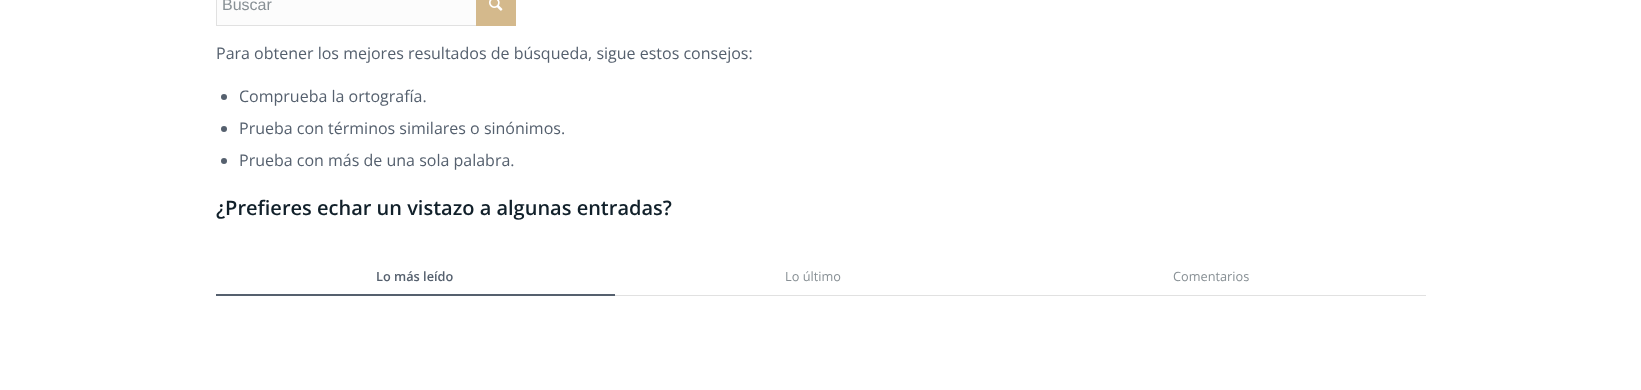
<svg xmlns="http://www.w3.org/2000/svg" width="1641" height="390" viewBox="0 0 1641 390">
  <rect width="100%" height="100%" fill="#ffffff"/>
  <rect x="217" y="0" width="259" height="25" fill="#fcfcfc"/>
  <rect x="216.5" y="-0.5" width="299" height="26" fill="none" stroke="#e1e1e1"/>
  <text x="222" y="10" font-family="Liberation Sans" font-size="16" fill="#889095">Buscar</text>
  <rect x="476" y="0" width="40" height="26" fill="#d4b98c"/>
  <image x="489" y="0" width="14" height="11" href="img1.png"/>
  <text x="216" y="59" font-family="Open Sans" font-size="16" fill="#55606e">Para obtener los mejores resultados de búsqueda, sigue estos consejos:</text>
  <circle cx="224" cy="97" r="3" fill="#55606e"/>
  <text x="239" y="102" font-family="Open Sans" font-size="16" fill="#55606e">Comprueba la ortografía.</text>
  <circle cx="224" cy="129" r="3" fill="#55606e"/>
  <text x="239" y="134" font-family="Open Sans" font-size="16" fill="#55606e">Prueba con términos similares o sinónimos.</text>
  <circle cx="224" cy="161" r="3" fill="#55606e"/>
  <text x="239" y="166" font-family="Open Sans" font-size="16" fill="#55606e">Prueba con más de una sola palabra.</text>
  <text x="216" y="215" font-family="Open Sans" font-size="20" font-weight="600" fill="#11202a">¿Prefieres echar un vistazo a algunas entradas?</text>
  <rect x="615" y="295" width="811" height="1" fill="#e1e1e1"/>
  <rect x="216" y="294" width="399" height="2" fill="#55606e"/>
  <text x="376" y="281" font-family="Open Sans" font-size="12.75" font-weight="600" fill="#55606e">Lo más leído</text>
  <text x="785" y="281" font-family="Open Sans" font-size="12.75" fill="#889095">Lo último</text>
  <text x="1173" y="281" font-family="Open Sans" font-size="12.75" fill="#889095">Comentarios</text>
</svg>
